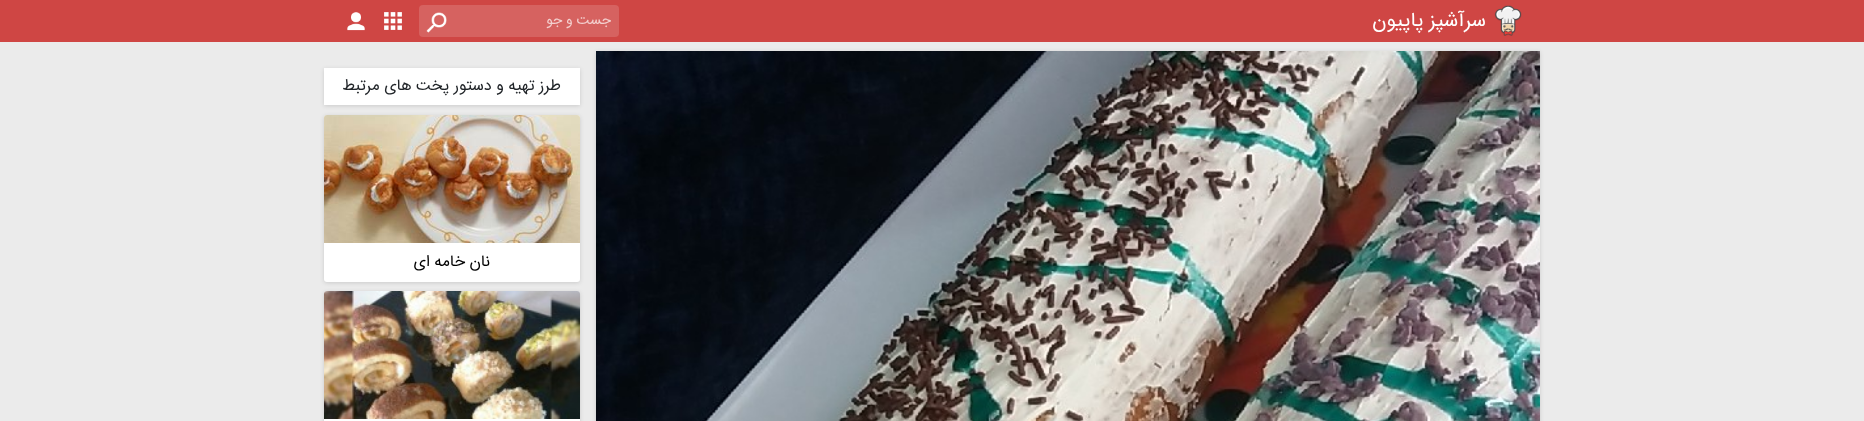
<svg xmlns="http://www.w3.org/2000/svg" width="1864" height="421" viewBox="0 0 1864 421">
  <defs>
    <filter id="blur1" x="-50%" y="-200%" width="200%" height="500%"><feGaussianBlur stdDeviation="2"/></filter>
  </defs>
  <rect width="100%" height="100%" fill="#ebebeb"/>
  <rect x="0" y="0" width="1864" height="42" fill="#cf4644"/>
  <image x="1494" y="5" width="28" height="31" href="img1.png"/>
  <text x="1486" y="26" font-family="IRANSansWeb" font-size="20" direction="rtl" fill="#ffffff">سرآشپز پاپیون</text>
  <rect x="419" y="5" width="200" height="32" rx="4" fill="#d66260"/>
  <image x="426" y="12" width="21" height="21" href="img2.png"/>
  <text x="611" y="24" font-family="IRANSansWeb" font-size="14" direction="rtl" fill="#f3d0cf">جست و جو</text>
  <image x="384" y="12" width="18" height="18" href="img3.png"/>
  <image x="347" y="12" width="18" height="19" href="img4.png"/>
  <rect x="596" y="52" width="944" height="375" fill="#000000" fill-opacity="0.14" filter="url(#blur1)"/>
  <image x="596" y="51" width="944" height="370" href="img5.png"/>
  <rect x="324" y="69" width="256" height="37" fill="#000000" fill-opacity="0.14" filter="url(#blur1)"/>
  <rect x="324" y="68" width="256" height="37" fill="#ffffff"/>
  <text x="561" y="90" font-family="IRANSansWeb" font-size="16" direction="rtl" fill="#212529">طرز تهیه و دستور پخت های مرتبط</text>
  <rect x="324" y="116" width="256" height="167" rx="3" fill="#000000" fill-opacity="0.14" filter="url(#blur1)"/>
  <rect x="324" y="115" width="256" height="167" rx="3" fill="#ffffff"/>
  <image x="324" y="115" width="256" height="128" href="img6.png"/>
  <text x="490" y="266" font-family="IRANSansWeb" font-size="16" direction="rtl" fill="#000000">نان خامه ای</text>
  <rect x="324" y="292" width="256" height="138" rx="3" fill="#000000" fill-opacity="0.14" filter="url(#blur1)"/>
  <rect x="324" y="291" width="256" height="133" rx="3" fill="#ffffff"/>
  <image x="324" y="291" width="256" height="128" href="img7.png"/>
</svg>
